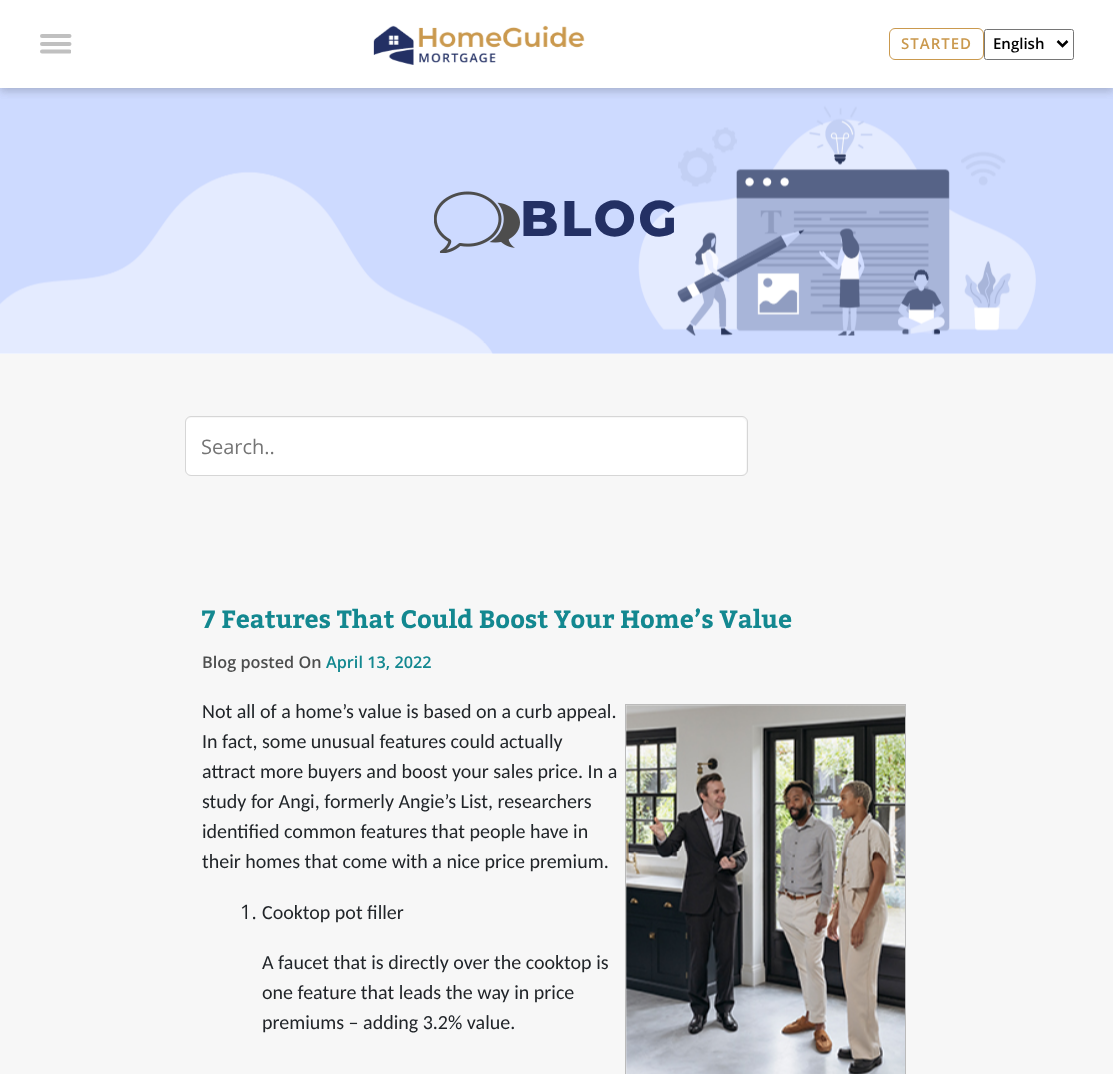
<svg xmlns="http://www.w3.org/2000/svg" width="1113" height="1074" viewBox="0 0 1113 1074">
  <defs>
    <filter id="blur1" x="-50%" y="-200%" width="200%" height="500%"><feGaussianBlur stdDeviation="4"/></filter>
    <clipPath id="clip1"><rect x="40" y="34" width="31" height="20"/></clipPath>
  </defs>
  <rect width="100%" height="100%" fill="#ffffff"/>
  <image x="0" y="88" width="1113" height="266" href="img2.png"/>
  <rect x="0" y="4" width="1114" height="87" fill="#000000" fill-opacity="0.1" filter="url(#blur1)"/>
  <rect x="0" y="4" width="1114" height="87" fill="#000000" fill-opacity="0.1" filter="url(#blur1)"/>
  <rect x="0" y="0" width="1113" height="88" fill="#ffffff"/>
  <path d="M42 36H69.5M42 44H69.5" fill="none" stroke="#c0c0c0" stroke-width="4" stroke-linecap="round"/>
  <g clip-path="url(#clip1)">
    <path d="M42 51.5H69.5" fill="none" stroke="#c0c0c0" stroke-width="4" stroke-linecap="round"/>
  </g>
  <image x="373" y="25" width="212" height="40" href="img1.png"/>
  <rect x="889.5" y="28.5" width="94" height="31" rx="5.5" fill="none" stroke="#ca994e"/>
  <text x="901" y="49" font-family="Open Sans" font-size="15" font-weight="600" letter-spacing="1" fill="#ca994e">STARTED</text>
  <rect x="984.5" y="29.5" width="89" height="30" rx="2" fill="none" stroke="#767676"/>
  <path d="M1057.5 41L1062.5 46L1067.5 41" fill="none" stroke="#000000" stroke-width="2.5"/>
  <text x="993" y="49" font-family="Open Sans" font-size="15" font-weight="600" fill="#000000">English</text>
  <image x="434" y="191" width="86" height="62" href="img3.png"/>
  <text x="520" y="236" font-family="Montserrat" font-size="50" font-weight="800" letter-spacing="2.5" fill="#233064">BLOG</text>
  <rect x="0" y="354" width="1113" height="720" fill="#f7f7f7"/>
  <rect x="186" y="418" width="560" height="57" rx="5" fill="#ffffff"/>
  <rect x="185.5" y="416.5" width="562" height="59" rx="5.5" fill="none" stroke="#d6d6d6"/>
  <text x="201" y="454" font-family="Open Sans" font-size="20" fill="#757575">Search..</text>
  <text x="202" y="628" font-family="Kadwa" font-size="25" font-weight="bold" fill="#138890">7 Features That Could Boost Your Home’s Value</text>
  <text x="202" y="668" font-family="Open Sans" font-size="16.25" font-weight="600" fill="#4d4e4e">Blog posted On</text>
  <text x="326" y="668" font-family="Open Sans" font-size="16.25" font-weight="600" fill="#138890">April 13, 2022</text>
  <text x="202" y="718" font-family="Carlito" font-size="20" fill="#212529">Not all of a home’s value is based on a curb appeal.</text>
  <text x="202" y="748" font-family="Carlito" font-size="20" fill="#212529">In fact, some unusual features could actually</text>
  <text x="202" y="778" font-family="Carlito" font-size="20" fill="#212529">attract more buyers and boost your sales price. In a</text>
  <text x="202" y="808" font-family="Carlito" font-size="20" fill="#212529">study for Angi, formerly Angie’s List, researchers</text>
  <text x="202" y="838" font-family="Carlito" font-size="20" fill="#212529">identified common features that people have in</text>
  <text x="202" y="868" font-family="Carlito" font-size="20" fill="#212529">their homes that come with a nice price premium.</text>
  <rect x="625.5" y="704.5" width="280" height="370" fill="none" stroke="#bbbbbb"/>
  <image x="626" y="704" width="279" height="370" href="img4.png"/>
  <text x="240" y="919" font-family="Open Sans" font-size="20" fill="#212529">1.</text>
  <text x="262" y="919" font-family="Carlito" font-size="20" fill="#212529">Cooktop pot filler</text>
  <text x="262" y="969" font-family="Carlito" font-size="20" fill="#212529">A faucet that is directly over the cooktop is</text>
  <text x="262" y="999" font-family="Carlito" font-size="20" fill="#212529">one feature that leads the way in price</text>
  <text x="262" y="1029" font-family="Carlito" font-size="20" fill="#212529">premiums – adding 3.2% value.</text>
</svg>
